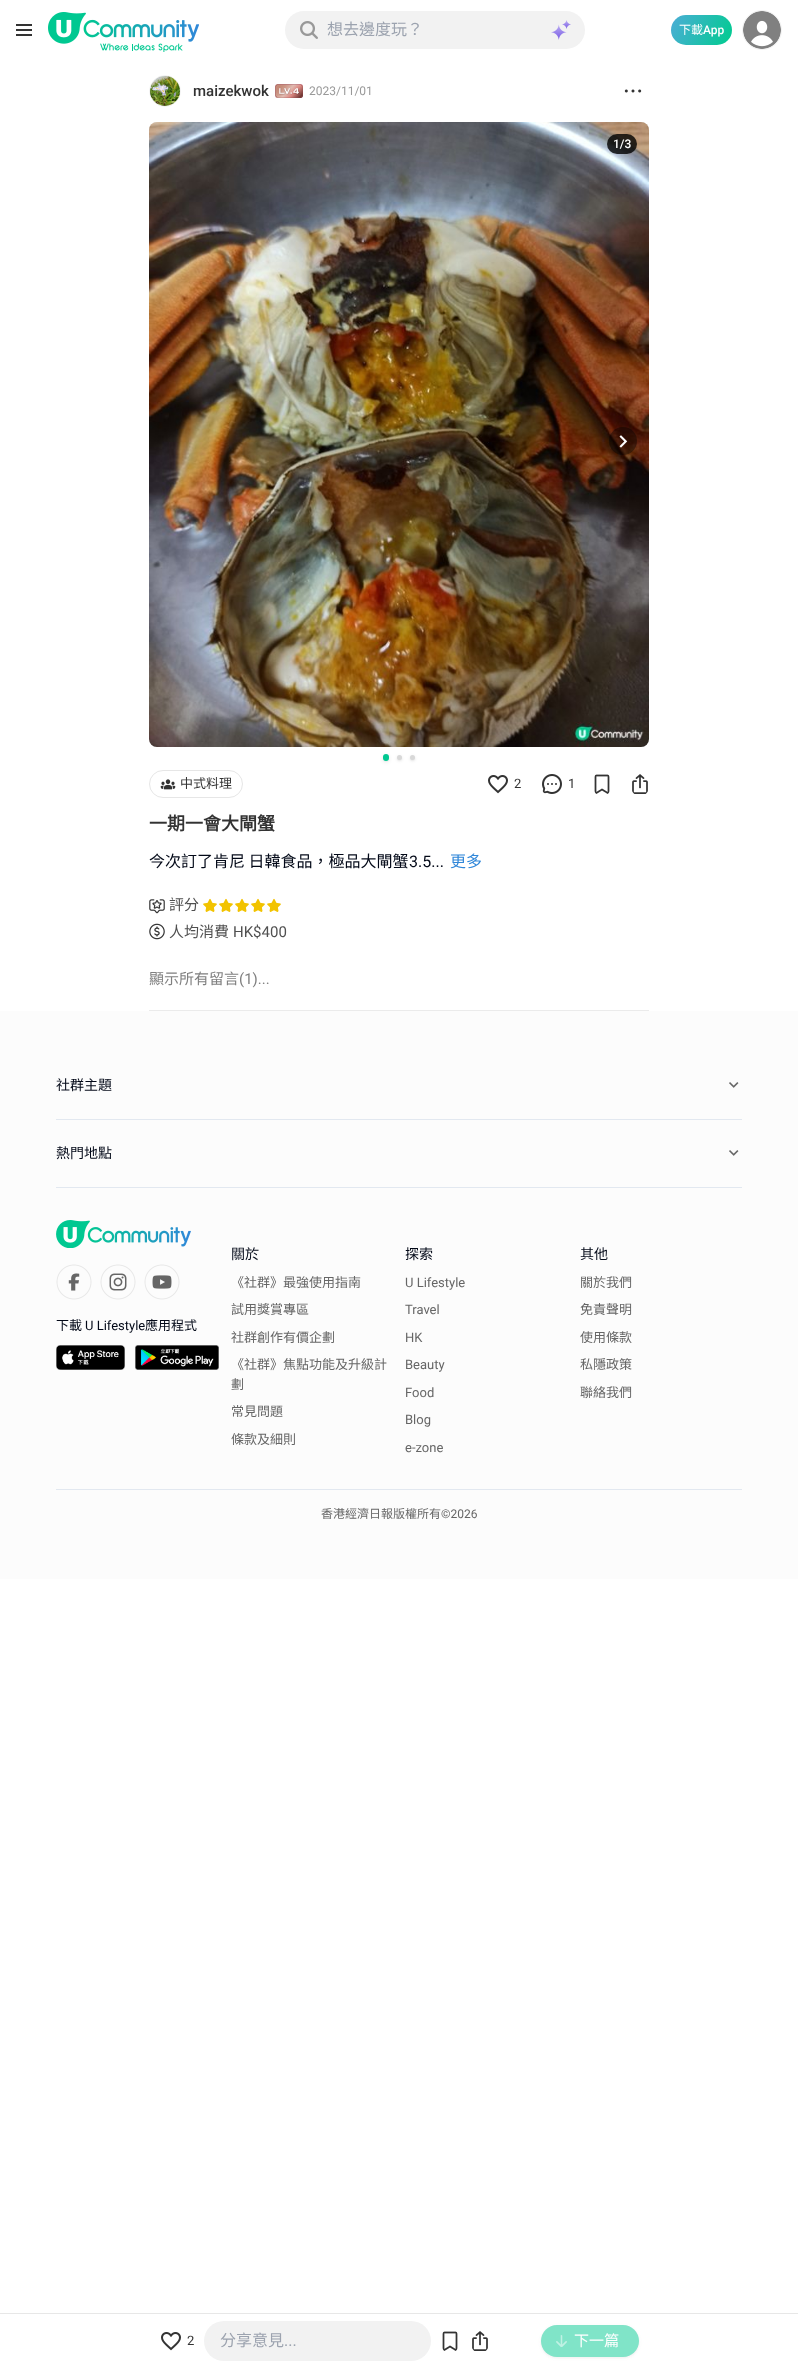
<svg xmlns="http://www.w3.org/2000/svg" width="798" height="2368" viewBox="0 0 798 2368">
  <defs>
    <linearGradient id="g1" gradientUnits="userSpaceOnUse" x1="671" y1="16" x2="732" y2="44"><stop offset="0" stop-color="#4badd6"/><stop offset="1" stop-color="#00cc8f"/></linearGradient>
    <filter id="blur1" x="-50%" y="-200%" width="200%" height="500%"><feGaussianBlur stdDeviation="1"/></filter>
    <filter id="blur2" x="-50%" y="-200%" width="200%" height="500%"><feGaussianBlur stdDeviation="2"/></filter>
    <filter id="blur3" x="-50%" y="-200%" width="200%" height="500%"><feGaussianBlur stdDeviation="1.5"/></filter>
  </defs>
  <rect width="100%" height="100%" fill="#ffffff"/>
  <image x="16" y="24" width="16" height="12" href="img1.png"/>
  <image x="48" y="12" width="151" height="40" href="img2.png"/>
  <rect x="285" y="11" width="300" height="38" rx="19" fill="#f2f2f2"/>
  <image x="300" y="21" width="18" height="18" href="img3.png"/>
  <text x="327" y="35" font-family="Noto Sans CJK HK" font-size="16" fill="#9ca3af">想去邊度玩？</text>
  <image x="551" y="20" width="20" height="20" href="img4.png"/>
  <rect x="671" y="15" width="61" height="30" rx="15" fill="url(#g1)"/>
  <text x="679" y="34" font-family="Noto Sans CJK HK" font-size="12" fill="#ffffff">下載</text>
  <text x="703" y="34" font-family="Roboto" font-size="12" font-weight="500" fill="#ffffff">App</text>
  <circle cx="762" cy="30" r="19.5" fill="none" stroke="#f2f2f2"/>
  <image x="743" y="11" width="38" height="38" href="img5.png"/>
  <rect x="149" y="1010" width="500" height="1" fill="#ebebeb"/>
  <circle cx="165" cy="91" r="15.5" fill="none" stroke="#f2f2f2"/>
  <image x="150" y="76" width="30" height="30" href="img6.png"/>
  <text x="193" y="96" font-family="Roboto" font-size="15" font-weight="500" fill="#333333">maizekwok</text>
  <image x="275" y="84" width="28" height="14" href="img7.png"/>
  <text x="309" y="95" font-family="Roboto" font-size="12" fill="#999999">2023/11/01</text>
  <image x="624" y="89" width="18" height="4" href="img8.png"/>
  <rect x="149" y="122" width="500" height="625" rx="8" fill="#e8e9ea"/>
  <image x="149" y="122" width="500" height="625" href="img9.png"/>
  <rect x="607" y="134" width="30" height="20" rx="10" fill="#000000" fill-opacity="0.8"/>
  <text x="613" y="148" font-family="Roboto" font-size="12" font-weight="500" fill="#ffffff">1/3</text>
  <circle cx="623" cy="441" r="14" fill="#000000" fill-opacity="0.4"/>
  <image x="619" y="435" width="9" height="13" href="img10.png"/>
  <rect x="384" y="757" width="4" height="4" rx="2" fill="#000000" fill-opacity="0.1" filter="url(#blur1)"/>
  <rect x="383" y="756" width="6" height="6" rx="3" fill="#000000" fill-opacity="0.1" filter="url(#blur2)"/>
  <rect x="383" y="754" width="6" height="7" rx="3" fill="#00c891"/>
  <rect x="398" y="757" width="3" height="3" rx="1.5" fill="#000000" fill-opacity="0.1" filter="url(#blur1)"/>
  <rect x="397" y="756" width="5" height="5" rx="2.5" fill="#000000" fill-opacity="0.1" filter="url(#blur3)"/>
  <circle cx="399.5" cy="757.5" r="2.5" fill="#d8d8d8"/>
  <rect x="411" y="757" width="3" height="3" rx="1.5" fill="#000000" fill-opacity="0.1" filter="url(#blur1)"/>
  <rect x="410" y="756" width="5" height="5" rx="2.5" fill="#000000" fill-opacity="0.1" filter="url(#blur3)"/>
  <circle cx="412.5" cy="757.5" r="2.5" fill="#d8d8d8"/>
  <rect x="149.5" y="770.5" width="93" height="27" rx="13.5" fill="none" stroke="#e6e6e6"/>
  <image x="160" y="779" width="16" height="11" href="img11.png"/>
  <text x="180" y="788" font-family="Noto Sans CJK HK" font-size="13" fill="#333333">中式料理</text>
  <image x="488" y="775" width="20" height="19" href="img12.png"/>
  <text x="514" y="788" font-family="Roboto" font-size="13" fill="#333333">2</text>
  <image x="542" y="774" width="20" height="20" href="img13.png"/>
  <text x="568" y="788" font-family="Roboto" font-size="13" fill="#333333">1</text>
  <image x="594" y="774" width="16" height="20" href="img14.png"/>
  <image x="632" y="774" width="16" height="20" href="img15.png"/>
  <text x="149" y="830" font-family="Noto Sans CJK HK" font-size="18" font-weight="bold" fill="#333333">一期一會大閘蟹</text>
  <text x="149" y="867" font-family="Noto Sans CJK HK" font-size="16" fill="#020817">今次訂了肯尼 日韓食品，極品大閘蟹</text>
  <text x="409" y="867" font-family="Roboto" font-size="16" fill="#020817">3.5...</text>
  <text x="450" y="867" font-family="Noto Sans CJK HK" font-size="16" fill="#3087d9">更多</text>
  <image x="149" y="899" width="16" height="15" href="img16.png"/>
  <text x="169" y="910" font-family="Noto Sans CJK HK" font-size="15" fill="#505050">評分</text>
  <image x="203" y="898" width="14" height="14" href="img17.png"/>
  <image x="219" y="898" width="14" height="14" href="img17.png"/>
  <image x="235" y="898" width="14" height="14" href="img17.png"/>
  <image x="251" y="898" width="14" height="14" href="img17.png"/>
  <image x="267" y="898" width="14" height="14" href="img17.png"/>
  <image x="149" y="923" width="16" height="17" href="img18.png"/>
  <text x="169" y="937" font-family="Noto Sans CJK HK" font-size="15" fill="#505050">人均消費</text>
  <text x="233" y="937" font-family="Roboto" font-size="15" fill="#505050">HK$400</text>
  <text x="149" y="984" font-family="Noto Sans CJK HK" font-size="15" fill="#808080">顯示所有留言</text>
  <text x="239" y="984" font-family="Roboto" font-size="15" fill="#808080">(1)...</text>
  <rect x="0" y="1011" width="798" height="568" fill="#fcfcfc"/>
  <text x="56" y="1090" font-family="Noto Sans CJK HK" font-size="14" fill="#020817">社群主題</text>
  <image x="729" y="1082" width="10" height="6" href="img19.png"/>
  <rect x="56" y="1119" width="686" height="1" fill="#e2e8f0"/>
  <text x="56" y="1158" font-family="Noto Sans CJK HK" font-size="14" fill="#020817">熱門地點</text>
  <image x="729" y="1150" width="10" height="6" href="img19.png"/>
  <rect x="56" y="1187" width="686" height="1" fill="#e2e8f0"/>
  <image x="56" y="1220" width="135" height="28" href="img20.png"/>
  <image x="56" y="1264" width="36" height="36" href="img21.png"/>
  <image x="100" y="1264" width="36" height="36" href="img22.png"/>
  <image x="144" y="1264" width="36" height="36" href="img23.png"/>
  <text x="56" y="1330" font-family="Noto Sans CJK HK" font-size="13" fill="#020817">下載</text>
  <text x="85" y="1330" font-family="Roboto" font-size="13" fill="#020817">U Lifestyle</text>
  <text x="145" y="1330" font-family="Noto Sans CJK HK" font-size="13" fill="#020817">應用程式</text>
  <image x="56" y="1345" width="69" height="25" href="img24.png"/>
  <image x="135" y="1345" width="84" height="25" href="img25.png"/>
  <text x="231" y="1259" font-family="Noto Sans CJK HK" font-size="14" fill="#020817">關於</text>
  <text x="231" y="1287" font-family="Noto Sans CJK HK" font-size="13" fill="#666666">《社群》最強使用指南</text>
  <text x="231" y="1314" font-family="Noto Sans CJK HK" font-size="13" fill="#666666">試用獎賞專區</text>
  <text x="231" y="1342" font-family="Noto Sans CJK HK" font-size="13" fill="#666666">社群創作有價企劃</text>
  <text x="231" y="1369" font-family="Noto Sans CJK HK" font-size="13" fill="#666666">《社群》焦點功能及升級計</text>
  <text x="231" y="1389" font-family="Noto Sans CJK HK" font-size="13" fill="#666666">劃</text>
  <text x="231" y="1416" font-family="Noto Sans CJK HK" font-size="13" fill="#666666">常見問題</text>
  <text x="231" y="1444" font-family="Noto Sans CJK HK" font-size="13" fill="#666666">條款及細則</text>
  <text x="405" y="1259" font-family="Noto Sans CJK HK" font-size="14" fill="#020817">探索</text>
  <text x="405" y="1287" font-family="Roboto" font-size="13" fill="#666666">U Lifestyle</text>
  <text x="405" y="1314" font-family="Roboto" font-size="13" fill="#666666">Travel</text>
  <text x="405" y="1342" font-family="Roboto" font-size="13" fill="#666666">HK</text>
  <text x="405" y="1369" font-family="Roboto" font-size="13" fill="#666666">Beauty</text>
  <text x="405" y="1397" font-family="Roboto" font-size="13" fill="#666666">Food</text>
  <text x="405" y="1424" font-family="Roboto" font-size="13" fill="#666666">Blog</text>
  <text x="405" y="1452" font-family="Roboto" font-size="13" fill="#666666">e-zone</text>
  <text x="580" y="1259" font-family="Noto Sans CJK HK" font-size="14" fill="#020817">其他</text>
  <text x="580" y="1287" font-family="Noto Sans CJK HK" font-size="13" fill="#666666">關於我們</text>
  <text x="580" y="1314" font-family="Noto Sans CJK HK" font-size="13" fill="#666666">免責聲明</text>
  <text x="580" y="1342" font-family="Noto Sans CJK HK" font-size="13" fill="#666666">使用條款</text>
  <text x="580" y="1369" font-family="Noto Sans CJK HK" font-size="13" fill="#666666">私隱政策</text>
  <text x="580" y="1397" font-family="Noto Sans CJK HK" font-size="13" fill="#666666">聯絡我們</text>
  <rect x="56" y="1489" width="686" height="1" fill="#e2e8f0"/>
  <text x="321" y="1518" font-family="Noto Sans CJK HK" font-size="12" fill="#666666">香港經濟日報版權所有</text>
  <text x="441" y="1518" font-family="Roboto" font-size="12" fill="#666666">©2026</text>
  <rect x="0" y="2313" width="798" height="1" fill="#e7e7e7"/>
  <image x="161" y="2332" width="20" height="19" href="img12.png"/>
  <text x="187" y="2345" font-family="Roboto" font-size="13" fill="#333333">2</text>
  <rect x="204" y="2321" width="227" height="40" rx="20" fill="#f2f2f2"/>
  <text x="220" y="2346" font-family="Noto Sans CJK HK" font-size="16" fill="#9ca3af">分享意見</text>
  <text x="284" y="2346" font-family="Roboto" font-size="16" fill="#9ca3af">...</text>
  <image x="442" y="2331" width="16" height="20" href="img14.png"/>
  <image x="472" y="2331" width="16" height="20" href="img15.png"/>
  <rect x="542" y="2327" width="96" height="30" rx="15" fill="#808080" fill-opacity="0.1" filter="url(#blur1)"/>
  <rect x="541" y="2326" width="98" height="32" rx="16" fill="#808080" fill-opacity="0.1" filter="url(#blur3)"/>
  <rect x="541" y="2325" width="98" height="32" rx="16" fill="#80e4c8"/>
  <image x="556" y="2335" width="11" height="12" href="img26.png"/>
  <text x="574" y="2346" font-family="Noto Sans CJK HK" font-size="15" fill="#ffffff">下一篇</text>
</svg>
